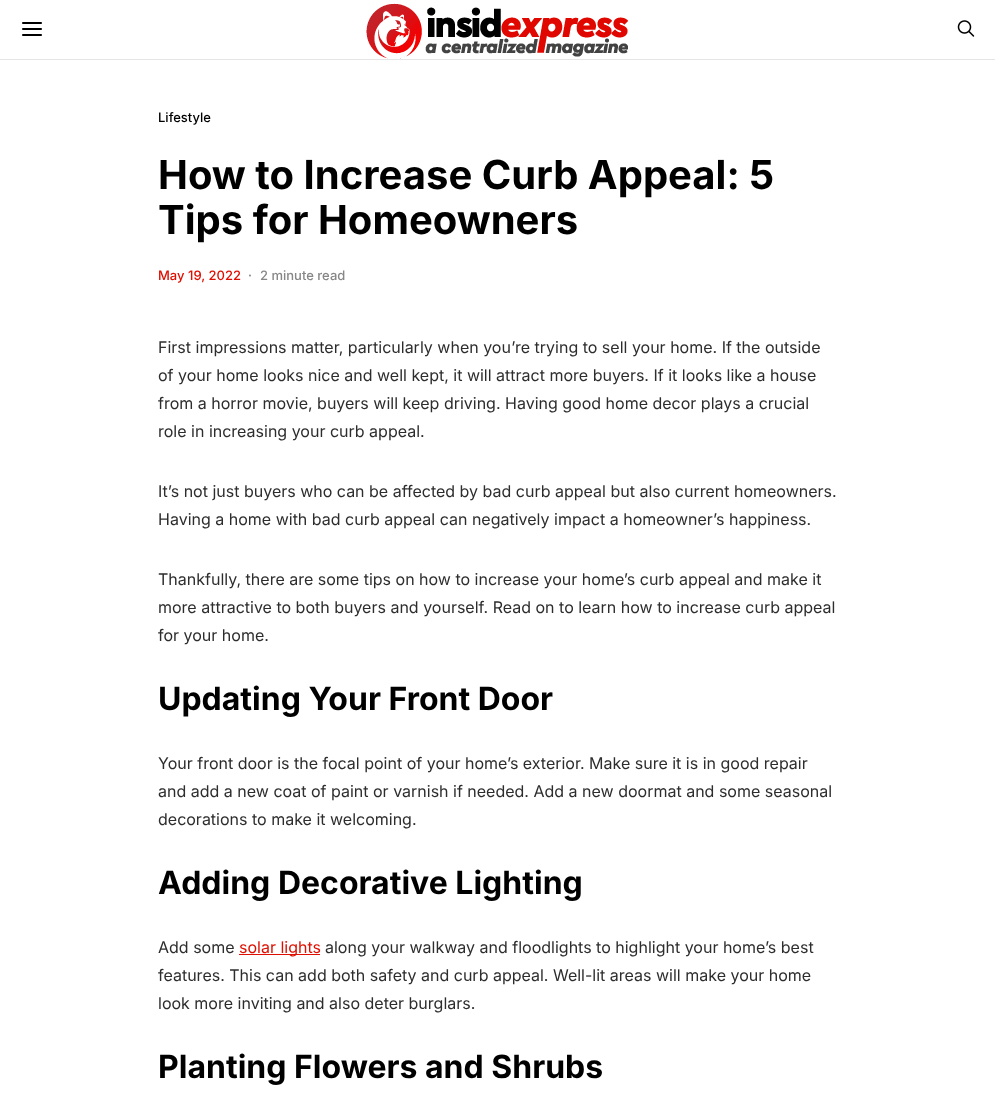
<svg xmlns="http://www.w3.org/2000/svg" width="995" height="1113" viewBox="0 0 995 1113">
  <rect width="100%" height="100%" fill="#ffffff"/>
  <rect x="0" y="59" width="995" height="1" fill="#e5e5e5"/>
  <image x="22" y="22" width="20" height="14" href="img1.png"/>
  <image x="366" y="3" width="262" height="56" href="img2.png"/>
  <image x="957" y="20" width="18" height="17" href="img3.png"/>
  <text x="158" y="122" font-family="Inter" font-size="13" font-weight="500" fill="#000000">Lifestyle</text>
  <text x="158" y="189" font-family="Inter" font-size="40" font-weight="bold" fill="#000000">How to Increase Curb Appeal: 5</text>
  <text x="158" y="234" font-family="Inter" font-size="40" font-weight="bold" fill="#000000">Tips for Homeowners</text>
  <text x="158" y="280" font-family="Inter" font-size="13" font-weight="500" fill="#de0f00">May 19, 2022</text>
  <text x="248" y="280" font-family="Inter" font-size="13" font-weight="500" fill="#878787">·</text>
  <text x="260" y="280" font-family="Inter" font-size="13" font-weight="500" fill="#878787">2 minute read</text>
  <text x="158" y="353" font-family="Inter" font-size="16" fill="#2d2d2d">First impressions matter, particularly when you’re trying to sell your home. If the outside</text>
  <text x="158" y="381" font-family="Inter" font-size="16" fill="#2d2d2d">of your home looks nice and well kept, it will attract more buyers. If it looks like a house</text>
  <text x="158" y="409" font-family="Inter" font-size="16" fill="#2d2d2d">from a horror movie, buyers will keep driving. Having good home decor plays a crucial</text>
  <text x="158" y="437" font-family="Inter" font-size="16" fill="#2d2d2d">role in increasing your curb appeal.</text>
  <text x="158" y="497" font-family="Inter" font-size="16" fill="#2d2d2d">It’s not just buyers who can be affected by bad curb appeal but also current homeowners.</text>
  <text x="158" y="525" font-family="Inter" font-size="16" fill="#2d2d2d">Having a home with bad curb appeal can negatively impact a homeowner’s happiness.</text>
  <text x="158" y="585" font-family="Inter" font-size="16" fill="#2d2d2d">Thankfully, there are some tips on how to increase your home’s curb appeal and make it</text>
  <text x="158" y="613" font-family="Inter" font-size="16" fill="#2d2d2d">more attractive to both buyers and yourself. Read on to learn how to increase curb appeal</text>
  <text x="158" y="641" font-family="Inter" font-size="16" fill="#2d2d2d">for your home.</text>
  <text x="158" y="710" font-family="Inter" font-size="32" font-weight="bold" fill="#000000">Updating Your Front Door</text>
  <text x="158" y="769" font-family="Inter" font-size="16" fill="#2d2d2d">Your front door is the focal point of your home’s exterior. Make sure it is in good repair</text>
  <text x="158" y="797" font-family="Inter" font-size="16" fill="#2d2d2d">and add a new coat of paint or varnish if needed. Add a new doormat and some seasonal</text>
  <text x="158" y="825" font-family="Inter" font-size="16" fill="#2d2d2d">decorations to make it welcoming.</text>
  <text x="158" y="894" font-family="Inter" font-size="32" font-weight="bold" fill="#000000">Adding Decorative Lighting</text>
  <text x="158" y="953" font-family="Inter" font-size="16" fill="#2d2d2d">Add some</text>
  <rect x="239" y="954" width="81" height="1" fill="#de0f00"/>
  <text x="239" y="953" font-family="Inter" font-size="16" fill="#de0f00">solar lights</text>
  <text x="325" y="953" font-family="Inter" font-size="16" fill="#2d2d2d">along your walkway and floodlights to highlight your home’s best</text>
  <text x="158" y="981" font-family="Inter" font-size="16" fill="#2d2d2d">features. This can add both safety and curb appeal. Well-lit areas will make your home</text>
  <text x="158" y="1009" font-family="Inter" font-size="16" fill="#2d2d2d">look more inviting and also deter burglars.</text>
  <text x="158" y="1078" font-family="Inter" font-size="32" font-weight="bold" fill="#000000">Planting Flowers and Shrubs</text>
</svg>
